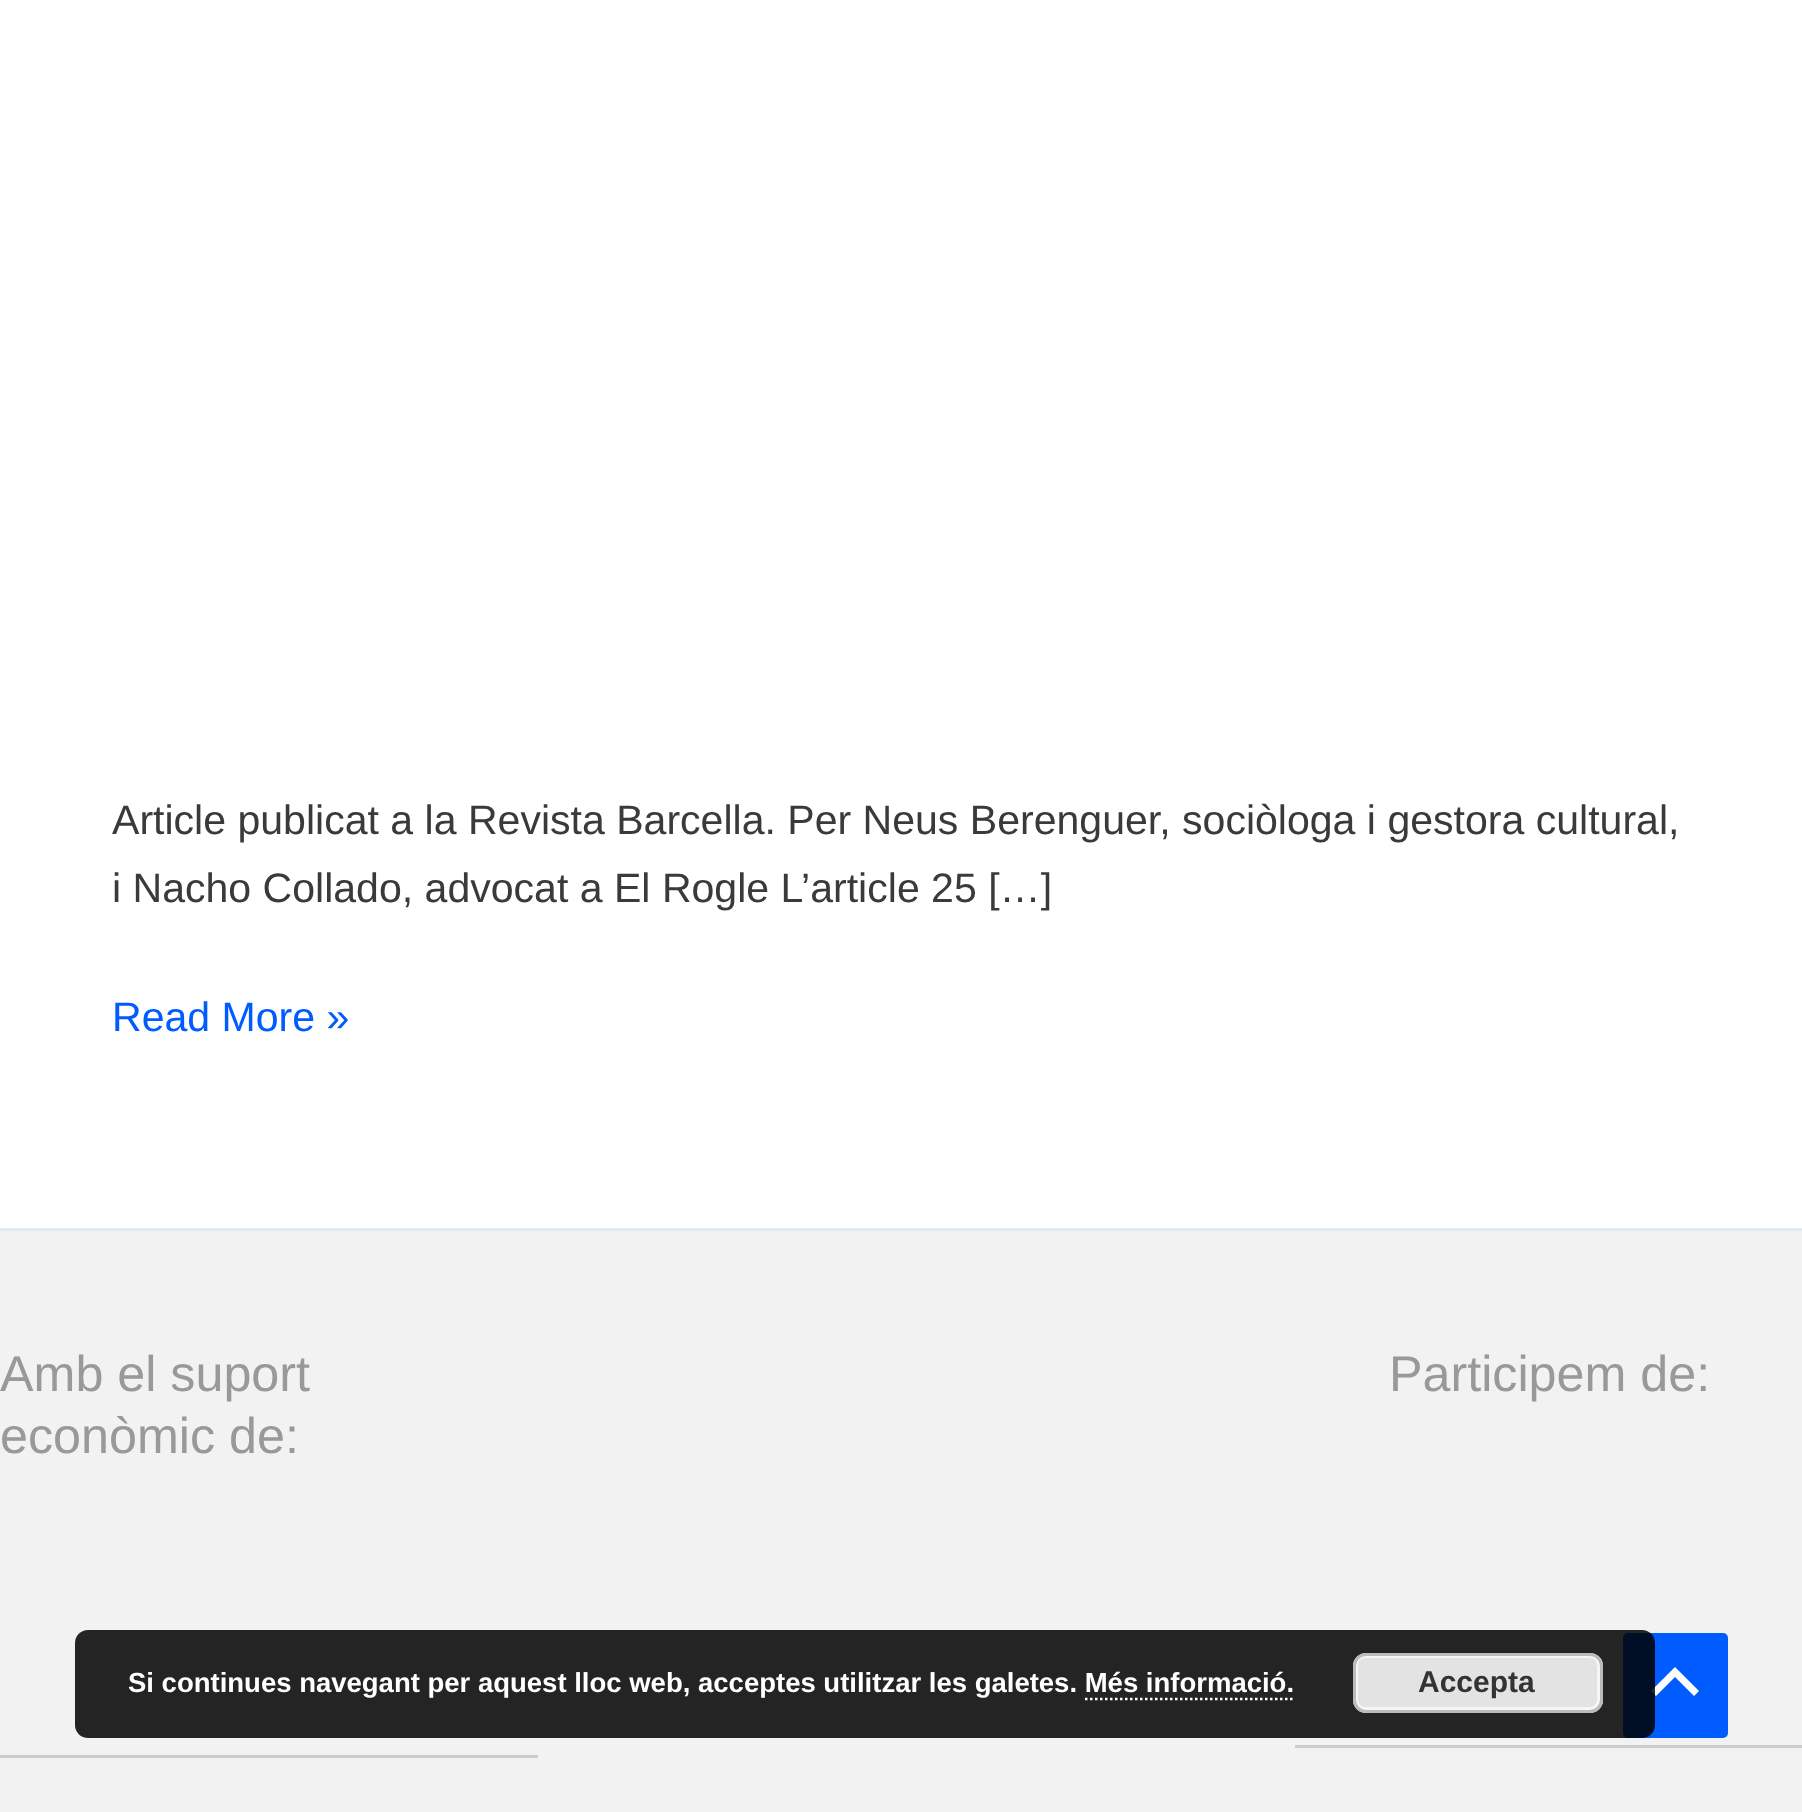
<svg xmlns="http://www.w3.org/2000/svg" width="1802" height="1812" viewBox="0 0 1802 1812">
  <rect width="100%" height="100%" fill="#ffffff"/>
  <text x="112" y="834" font-family="Liberation Sans" font-size="41.05" fill="#3a3a3a">Article publicat a la Revista Barcella. Per Neus Berenguer, sociòloga i gestora cultural,</text>
  <text x="112" y="902" font-family="Liberation Sans" font-size="41.05" fill="#3a3a3a">i Nacho Collado, advocat a El Rogle L’article 25 […]</text>
  <text x="112" y="1031" font-family="Liberation Sans" font-size="41.05" fill="#005cff">Read More »</text>
  <rect x="0" y="1231" width="1802" height="581" fill="#f2f2f2"/>
  <rect x="0" y="1228" width="1802" height="3" fill="#e2e8f0"/>
  <text x="0" y="1391" font-family="Liberation Sans" font-size="50.25" fill="#999999">Amb el suport</text>
  <text x="0" y="1453" font-family="Liberation Sans" font-size="50.25" fill="#999999">econòmic de:</text>
  <rect x="0" y="1755" width="538" height="3" fill="#cccccc"/>
  <text x="1389" y="1391" font-family="Liberation Sans" font-size="50.25" fill="#999999">Participem de:</text>
  <rect x="1295" y="1745" width="507" height="3" fill="#cccccc"/>
  <rect x="1623" y="1633" width="105" height="105" rx="5" fill="#005cff"/>
  <path d="M1699 1691L1675 1667L1651 1691L1656 1696L1675 1677L1694 1696Z" fill="#ffffff"/>
  <rect x="75" y="1630" width="1580" height="108" rx="13" fill="#000000" fill-opacity="0.85"/>
  <text x="128" y="1692" font-family="Liberation Sans" font-size="27.5" font-weight="bold" fill="#ffffff">Si continues navegant per aquest lloc web, acceptes utilitzar les galetes. Més informació.</text>
  <rect x="1353" y="1653" width="250" height="60" rx="13" fill="#e3e3e3"/>
  <rect x="1356.5" y="1656.5" width="242" height="52" rx="8.5" fill="none" stroke="#f6f6f6" stroke-width="3"/>
  <rect x="1354.5" y="1654.5" width="247" height="57" rx="11.5" fill="none" stroke="#bbbbbb" stroke-width="3"/>
  <text x="1418" y="1692" font-family="Liberation Sans" font-size="30" font-weight="bold" fill="#333333">Accepta</text>
  <path d="M1085 1699H1292.5" fill="none" stroke="#ffffff" stroke-width="2.5" stroke-dasharray="2.5 2.5"/>
</svg>
